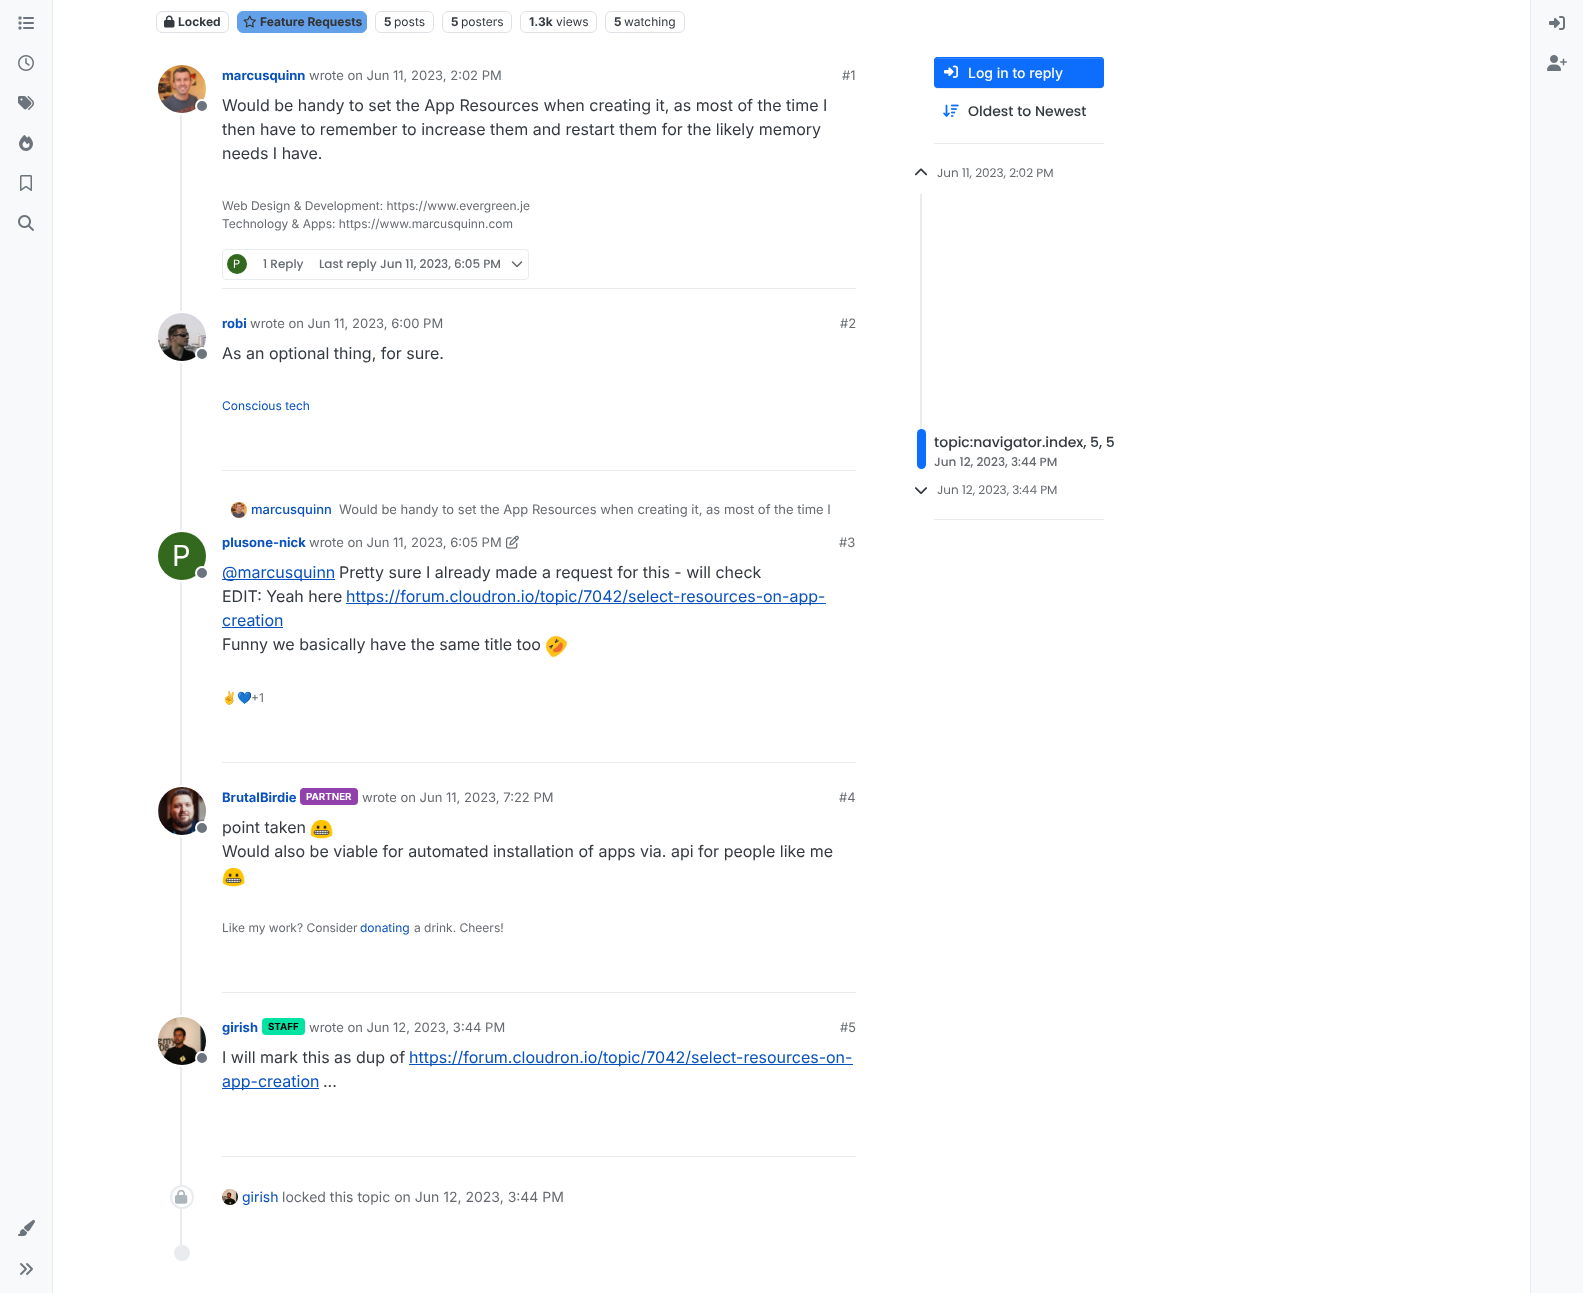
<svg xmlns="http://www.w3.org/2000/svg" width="1583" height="1293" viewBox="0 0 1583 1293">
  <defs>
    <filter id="blur1" x="-50%" y="-200%" width="200%" height="500%"><feGaussianBlur stdDeviation="0.5"/></filter>
  </defs>
  <rect width="100%" height="100%" fill="#ffffff"/>
  <rect x="0" y="0" width="52" height="1293" fill="#f8f9fa"/>
  <rect x="52" y="0" width="1" height="1293" fill="#e9ecef"/>
  <image x="18" y="16" width="16" height="14" href="img1.png"/>
  <image x="18" y="55" width="16" height="16" href="img2.png"/>
  <image x="18" y="96" width="16" height="14" href="img3.png"/>
  <image x="19" y="135" width="14" height="16" href="img4.png"/>
  <image x="20" y="175" width="12" height="16" href="img5.png"/>
  <image x="18" y="215" width="16" height="16" href="img6.png"/>
  <image x="18" y="1220" width="17" height="16" href="img7.png"/>
  <image x="20" y="1263" width="13" height="12" href="img8.png"/>
  <rect x="156.5" y="11.5" width="72" height="21" rx="5.5" fill="none" stroke="#dee2e6"/>
  <image x="164" y="15" width="11" height="13" href="img9.png"/>
  <text x="178" y="26" font-family="Inter" font-size="12" font-weight="bold" fill="#343a40">Locked</text>
  <rect x="237.5" y="11.5" width="129" height="21" rx="5.5" fill="#62a0ea" stroke="#62a0ea"/>
  <image x="243" y="15" width="13" height="13" href="img10.png"/>
  <text x="260" y="26" font-family="Inter" font-size="12" font-weight="bold" fill="#333333">Feature Requests</text>
  <rect x="375.5" y="11.5" width="58" height="21" rx="5.5" fill="none" stroke="#dee2e6"/>
  <text x="384" y="26" font-family="Inter" font-size="12" font-weight="bold" fill="#343a40">5</text>
  <text x="394" y="26" font-family="Inter" font-size="12" fill="#343a40">posts</text>
  <rect x="442.5" y="11.5" width="69" height="21" rx="5.5" fill="none" stroke="#dee2e6"/>
  <text x="451" y="26" font-family="Inter" font-size="12" font-weight="bold" fill="#343a40">5</text>
  <text x="461" y="26" font-family="Inter" font-size="12" fill="#343a40">posters</text>
  <rect x="520.5" y="11.5" width="76" height="21" rx="5.5" fill="none" stroke="#dee2e6"/>
  <text x="529" y="26" font-family="Inter" font-size="12" font-weight="bold" fill="#343a40">1.3k</text>
  <text x="556" y="26" font-family="Inter" font-size="12" fill="#343a40">views</text>
  <rect x="605.5" y="11.5" width="79" height="21" rx="5.5" fill="none" stroke="#dee2e6"/>
  <text x="614" y="26" font-family="Inter" font-size="12" font-weight="bold" fill="#343a40">5</text>
  <text x="624" y="26" font-family="Inter" font-size="12" fill="#343a40">watching</text>
  <rect x="180" y="65" width="2" height="1180" fill="#e9ecef"/>
  <circle cx="182" cy="89" r="25" fill="none" stroke="#ffffff" stroke-width="2"/>
  <image x="158" y="65" width="48" height="48" href="img11.png"/>
  <circle cx="202" cy="106" r="6" fill="#6c757d" stroke="#ffffff" stroke-width="2"/>
  <text x="222" y="80" font-family="Inter" font-size="13" font-weight="bold" fill="#0951be">marcusquinn</text>
  <text x="309" y="80" font-family="Inter" font-size="13" fill="#676b70">wrote on Jun 11, 2023, 2:02 PM</text>
  <text x="842" y="80" font-family="Inter" font-size="13" fill="#676b70">#1</text>
  <text x="222" y="111" font-family="Inter" font-size="16" fill="#343a40">Would be handy to set the App Resources when creating it, as most of the time I</text>
  <text x="222" y="135" font-family="Inter" font-size="16" fill="#343a40">then have to remember to increase them and restart them for the likely memory</text>
  <text x="222" y="159" font-family="Inter" font-size="16" fill="#343a40">needs I have.</text>
  <rect x="222" y="288" width="634" height="1" fill="#e9ecef"/>
  <text x="222" y="210" font-family="Inter" font-size="12" fill="#676b70">Web Design &amp; Development: https://www.evergreen.je</text>
  <text x="222" y="228" font-family="Inter" font-size="12" fill="#676b70">Technology &amp; Apps: https://www.marcusquinn.com</text>
  <rect x="222.5" y="249.5" width="306" height="30" rx="3.5" fill="none" stroke="#e9ecef"/>
  <circle cx="237" cy="264" r="10" fill="#33691e"/>
  <text x="233" y="268" font-family="Poppins" font-size="12" fill="#ffffff">P</text>
  <text x="263" y="268" font-family="Poppins" font-size="12" font-weight="500" fill="#676b70">1 Reply</text>
  <text x="319" y="268" font-family="Poppins" font-size="12" font-weight="500" fill="#676b70">Last reply Jun 11, 2023, 6:05 PM</text>
  <image x="511" y="261" width="12" height="7" href="img12.png"/>
  <circle cx="182" cy="337" r="25" fill="none" stroke="#ffffff" stroke-width="2"/>
  <image x="158" y="313" width="48" height="48" href="img13.png"/>
  <circle cx="202" cy="354" r="6" fill="#6c757d" stroke="#ffffff" stroke-width="2"/>
  <text x="222" y="328" font-family="Inter" font-size="13" font-weight="bold" fill="#0951be">robi</text>
  <text x="250" y="328" font-family="Inter" font-size="13" fill="#676b70">wrote on Jun 11, 2023, 6:00 PM</text>
  <text x="840" y="328" font-family="Inter" font-size="13" fill="#676b70">#2</text>
  <text x="222" y="359" font-family="Inter" font-size="16" fill="#343a40">As an optional thing, for sure.</text>
  <rect x="222" y="470" width="634" height="1" fill="#e9ecef"/>
  <text x="222" y="410" font-family="Inter" font-size="12" fill="#0951be">Conscious tech</text>
  <image x="231" y="502" width="16" height="16" href="img14.png"/>
  <text x="251" y="514" font-family="Inter" font-size="13" font-weight="500" fill="#0951be">marcusquinn</text>
  <text x="339" y="514" font-family="Inter" font-size="13" fill="#676b70">Would be handy to set the App Resources when creating it, as most of the time I</text>
  <circle cx="182" cy="556" r="25" fill="none" stroke="#ffffff" stroke-width="2"/>
  <circle cx="182" cy="556" r="24" fill="#33691e"/>
  <text x="172" y="566" font-family="Inter" font-size="29" fill="#ffffff">P</text>
  <circle cx="202" cy="573" r="6" fill="#6c757d" stroke="#ffffff" stroke-width="2"/>
  <text x="222" y="547" font-family="Inter" font-size="13" font-weight="bold" fill="#0951be">plusone-nick</text>
  <text x="309" y="547" font-family="Inter" font-size="13" fill="#676b70">wrote on Jun 11, 2023, 6:05 PM</text>
  <image x="506" y="535" width="13" height="14" href="img15.png"/>
  <text x="839" y="547" font-family="Inter" font-size="13" fill="#676b70">#3</text>
  <rect x="222" y="579" width="113" height="1" fill="#0951be"/>
  <text x="222" y="578" font-family="Inter" font-size="16" fill="#0951be">@marcusquinn</text>
  <text x="339" y="578" font-family="Inter" font-size="16" fill="#343a40">Pretty sure I already made a request for this - will check</text>
  <text x="222" y="602" font-family="Inter" font-size="16" fill="#343a40">EDIT: Yeah here</text>
  <rect x="346" y="603" width="480" height="1" fill="#0951be"/>
  <text x="346" y="602" font-family="Inter" font-size="16" fill="#0951be">https://forum.cloudron.io/topic/7042/select-resources-on-app-</text>
  <text x="222" y="626" font-family="Inter" font-size="16" fill="#0951be">creation</text>
  <rect x="222" y="627" width="61" height="1" fill="#0951be"/>
  <text x="222" y="650" font-family="Inter" font-size="16" fill="#343a40">Funny we basically have the same title too</text>
  <image x="545" y="635" width="23" height="23" href="img16.png"/>
  <rect x="222" y="762" width="634" height="1" fill="#e9ecef"/>
  <text x="222" y="702" font-family="Noto Color Emoji" font-size="12" fill="#676b70">✌💙</text>
  <text x="251" y="702" font-family="Inter" font-size="12" fill="#676b70">+1</text>
  <circle cx="182" cy="811" r="25" fill="none" stroke="#ffffff" stroke-width="2"/>
  <image x="158" y="787" width="48" height="48" href="img17.png"/>
  <circle cx="202" cy="828" r="6" fill="#6c757d" stroke="#ffffff" stroke-width="2"/>
  <text x="222" y="802" font-family="Inter" font-size="13" font-weight="bold" fill="#0951be">BrutalBirdie</text>
  <rect x="300" y="788" width="58" height="17" rx="4" fill="#9141ac"/>
  <text x="306" y="800" font-family="Inter" font-size="9.75" font-weight="bold" fill="#ffffff">PARTNER</text>
  <text x="362" y="802" font-family="Inter" font-size="13" fill="#676b70">wrote on Jun 11, 2023, 7:22 PM</text>
  <text x="839" y="802" font-family="Inter" font-size="13" fill="#676b70">#4</text>
  <text x="222" y="833" font-family="Inter" font-size="16" fill="#343a40">point taken</text>
  <image x="310" y="819" width="23" height="20" href="img18.png"/>
  <text x="222" y="857" font-family="Inter" font-size="16" fill="#343a40">Would also be viable for automated installation of apps via. api for people like me</text>
  <image x="222" y="867" width="23" height="20" href="img18.png"/>
  <rect x="222" y="992" width="634" height="1" fill="#e9ecef"/>
  <text x="222" y="932" font-family="Inter" font-size="12" fill="#676b70">Like my work? Consider</text>
  <text x="360" y="932" font-family="Inter" font-size="12" fill="#0951be">donating</text>
  <text x="414" y="932" font-family="Inter" font-size="12" fill="#676b70">a drink. Cheers!</text>
  <circle cx="182" cy="1041" r="25" fill="none" stroke="#ffffff" stroke-width="2"/>
  <image x="158" y="1017" width="48" height="48" href="img19.png"/>
  <circle cx="202" cy="1058" r="6" fill="#6c757d" stroke="#ffffff" stroke-width="2"/>
  <text x="222" y="1032" font-family="Inter" font-size="13" font-weight="bold" fill="#0951be">girish</text>
  <rect x="262" y="1018" width="43" height="17" rx="4" fill="#00e3a3"/>
  <text x="268" y="1030" font-family="Inter" font-size="9.75" font-weight="bold" fill="#000000">STAFF</text>
  <text x="309" y="1032" font-family="Inter" font-size="13" fill="#676b70">wrote on Jun 12, 2023, 3:44 PM</text>
  <text x="840" y="1032" font-family="Inter" font-size="13" fill="#676b70">#5</text>
  <text x="222" y="1063" font-family="Inter" font-size="16" fill="#343a40">I will mark this as dup of</text>
  <rect x="409" y="1064" width="444" height="1" fill="#0951be"/>
  <text x="409" y="1063" font-family="Inter" font-size="16" fill="#0951be">https://forum.cloudron.io/topic/7042/select-resources-on-</text>
  <rect x="222" y="1088" width="97" height="1" fill="#0951be"/>
  <text x="222" y="1087" font-family="Inter" font-size="16" fill="#0951be">app-creation</text>
  <text x="323" y="1087" font-family="Inter" font-size="16" fill="#343a40">...</text>
  <rect x="222" y="1156" width="634" height="1" fill="#e9ecef"/>
  <circle cx="182" cy="1197" r="11" fill="#ffffff" stroke="#e9ecef" stroke-width="2"/>
  <image x="175" y="1189" width="13" height="15" href="img20.png"/>
  <image x="222" y="1189" width="16" height="16" href="img21.png"/>
  <text x="242" y="1202" font-family="Inter" font-size="14" fill="#0951be">girish</text>
  <text x="282" y="1202" font-family="Inter" font-size="14" fill="#676b70">locked this topic on Jun 12, 2023, 3:44 PM</text>
  <circle cx="182" cy="1253" r="8" fill="#e9ecef"/>
  <rect x="934" y="58" width="170" height="31" rx="4" fill="#000000" fill-opacity="0.07" filter="url(#blur1)"/>
  <rect x="934" y="57" width="170" height="31" rx="4" fill="#0d6efd"/>
  <path d="M938 59H1100C1102 59 1103 60 1103 62V61C1103 59 1102 58 1100 58H938C936 58 935 59 935 61V62C935 60 936 59 938 59Z" fill="#3184fd"/>
  <rect x="934.5" y="57.5" width="169" height="30" rx="3.5" fill="none" stroke="#0d6efd"/>
  <image x="944" y="65" width="14" height="13" href="img22.png"/>
  <text x="968" y="78" font-family="Inter" font-size="14" font-weight="500" fill="#ffffff">Log in to reply</text>
  <image x="943" y="104" width="16" height="13" href="img23.png"/>
  <text x="968" y="116" font-family="Poppins" font-size="14" font-weight="500" fill="#343a40">Oldest to Newest</text>
  <rect x="934" y="143" width="170" height="1" fill="#e9ecef"/>
  <image x="914" y="168" width="14" height="8" href="img24.png"/>
  <text x="937" y="177" font-family="Poppins" font-size="12" fill="#676b70">Jun 11, 2023, 2:02 PM</text>
  <rect x="920" y="194" width="2" height="275" fill="#e9ecef"/>
  <rect x="917" y="429" width="9" height="40" rx="4.5" fill="#0d6efd"/>
  <text x="934" y="447" font-family="Poppins" font-size="14" font-weight="500" fill="#343a40">topic:navigator.index, 5, 5</text>
  <text x="934" y="466" font-family="Poppins" font-size="12" font-weight="500" fill="#676b70">Jun 12, 2023, 3:44 PM</text>
  <image x="915" y="487" width="12" height="7" href="img25.png"/>
  <text x="937" y="494" font-family="Poppins" font-size="12" fill="#676b70">Jun 12, 2023, 3:44 PM</text>
  <rect x="934" y="519" width="170" height="1" fill="#e9ecef"/>
  <rect x="1531" y="0" width="52" height="1293" fill="#f8f9fa"/>
  <rect x="1530" y="0" width="1" height="1293" fill="#e9ecef"/>
  <image x="1549" y="16" width="16" height="14" href="img26.png"/>
  <image x="1547" y="55" width="20" height="16" href="img27.png"/>
</svg>
